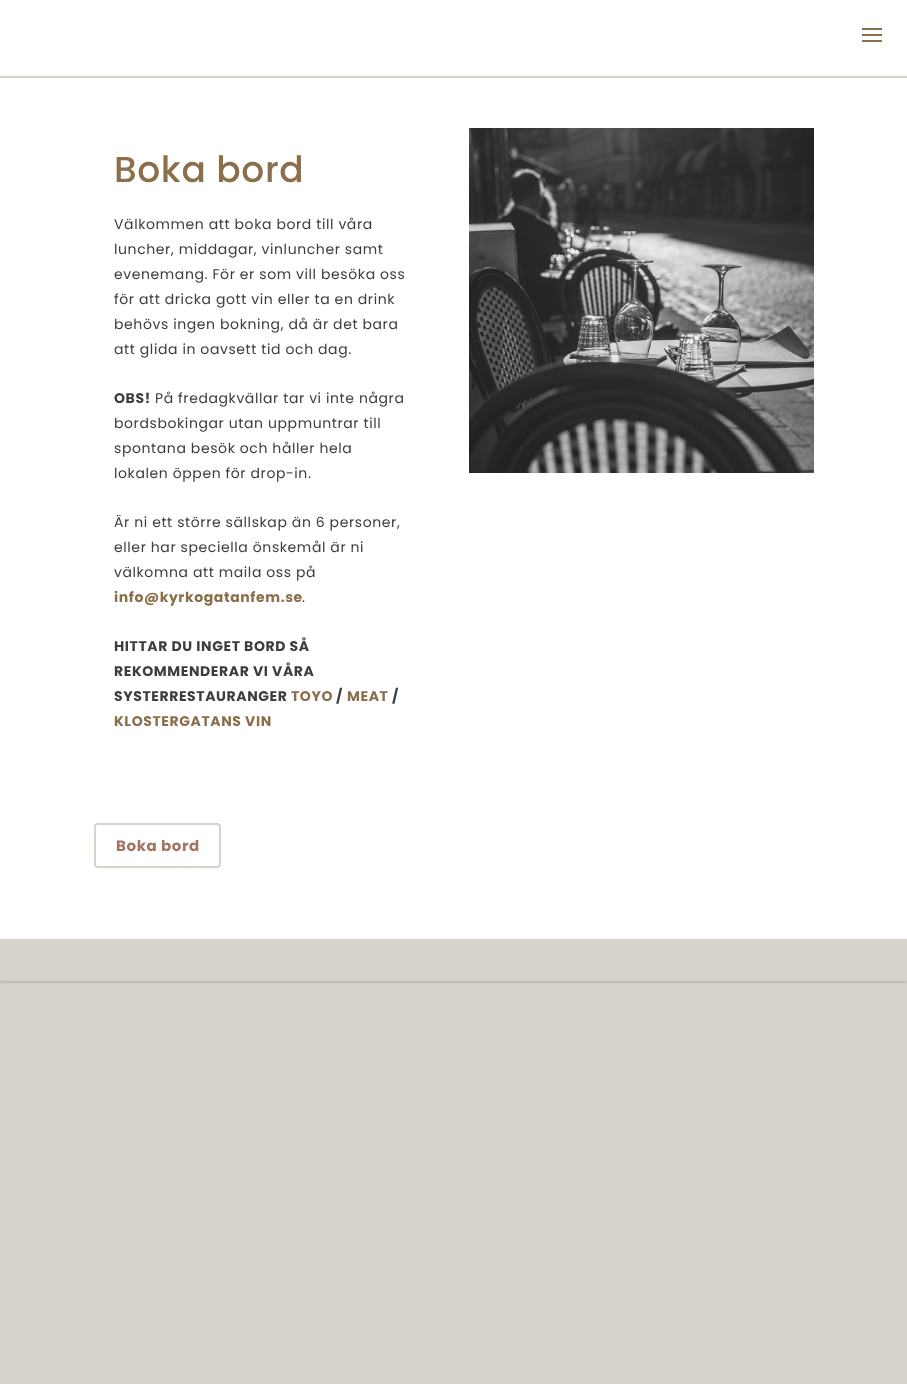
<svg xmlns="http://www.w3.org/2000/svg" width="907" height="1384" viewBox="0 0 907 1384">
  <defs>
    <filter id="blur1" x="-50%" y="-200%" width="200%" height="500%"><feGaussianBlur stdDeviation="2"/></filter>
  </defs>
  <rect width="100%" height="100%" fill="#d7d2cb"/>
  <rect x="0" y="0" width="907" height="981" fill="#000000" fill-opacity="0.3" filter="url(#blur1)"/>
  <rect x="0" y="0" width="907" height="939" fill="#ffffff"/>
  <rect x="0" y="76" width="907" height="2" fill="#d7d2cb"/>
  <rect x="862" y="34" width="20" height="2" fill="#8b6f4b"/>
  <rect x="862" y="28" width="20" height="2" fill="#8b6f4b"/>
  <rect x="862" y="40" width="20" height="2" fill="#8b6f4b"/>
  <text x="114" y="182" font-family="Poppins" font-size="36" font-weight="500" letter-spacing="0.6" fill="#8b6f4b">Boka bord</text>
  <text x="114" y="229" font-family="Poppins" font-size="14" letter-spacing="0.6" fill="#3d3d3d">Välkommen att boka bord till våra</text>
  <text x="114" y="254" font-family="Poppins" font-size="14" letter-spacing="0.6" fill="#3d3d3d">luncher, middagar, vinluncher samt</text>
  <text x="114" y="279" font-family="Poppins" font-size="14" letter-spacing="0.6" fill="#3d3d3d">evenemang. För er som vill besöka oss</text>
  <text x="114" y="304" font-family="Poppins" font-size="14" letter-spacing="0.6" fill="#3d3d3d">för att dricka gott vin eller ta en drink</text>
  <text x="114" y="329" font-family="Poppins" font-size="14" letter-spacing="0.6" fill="#3d3d3d">behövs ingen bokning, då är det bara</text>
  <text x="114" y="354" font-family="Poppins" font-size="14" letter-spacing="0.6" fill="#3d3d3d">att glida in oavsett tid och dag.</text>
  <text x="114" y="403" font-family="Poppins" font-size="14" font-weight="bold" letter-spacing="0.6" fill="#3d3d3d">OBS!</text>
  <text x="155" y="403" font-family="Poppins" font-size="14" letter-spacing="0.6" fill="#3d3d3d">På fredagkvällar tar vi inte några</text>
  <text x="114" y="428" font-family="Poppins" font-size="14" letter-spacing="0.6" fill="#3d3d3d">bordsbokingar utan uppmuntrar till</text>
  <text x="114" y="453" font-family="Poppins" font-size="14" letter-spacing="0.6" fill="#3d3d3d">spontana besök och håller hela</text>
  <text x="114" y="478" font-family="Poppins" font-size="14" letter-spacing="0.6" fill="#3d3d3d">lokalen öppen för drop-in.</text>
  <text x="114" y="527" font-family="Poppins" font-size="14" letter-spacing="0.6" fill="#3d3d3d">Är ni ett större sällskap än 6 personer,</text>
  <text x="114" y="552" font-family="Poppins" font-size="14" letter-spacing="0.6" fill="#3d3d3d">eller har speciella önskemål är ni</text>
  <text x="114" y="577" font-family="Poppins" font-size="14" letter-spacing="0.6" fill="#3d3d3d">välkomna att maila oss på</text>
  <text x="114" y="602" font-family="Poppins" font-size="14" font-weight="bold" letter-spacing="0.6" fill="#8b6f4b">info@kyrkogatanfem.se</text>
  <text x="302" y="602" font-family="Poppins" font-size="14" letter-spacing="0.6" fill="#3d3d3d">.</text>
  <text x="114" y="651" font-family="Poppins" font-size="14" font-weight="bold" letter-spacing="0.6" fill="#3d3d3d">HITTAR DU INGET BORD SÅ</text>
  <text x="114" y="676" font-family="Poppins" font-size="14" font-weight="bold" letter-spacing="0.6" fill="#3d3d3d">REKOMMENDERAR VI VÅRA</text>
  <text x="114" y="701" font-family="Poppins" font-size="14" font-weight="bold" letter-spacing="0.6" fill="#3d3d3d">SYSTERRESTAURANGER</text>
  <text x="291" y="701" font-family="Poppins" font-size="14" font-weight="bold" letter-spacing="0.6" fill="#8b6f4b">TOYO</text>
  <text x="336" y="701" font-family="Poppins" font-size="14" font-weight="bold" letter-spacing="0.6" fill="#3d3d3d">/</text>
  <text x="347" y="701" font-family="Poppins" font-size="14" font-weight="bold" letter-spacing="0.6" fill="#8b6f4b">MEAT</text>
  <text x="392" y="701" font-family="Poppins" font-size="14" font-weight="bold" letter-spacing="0.6" fill="#3d3d3d">/</text>
  <text x="114" y="726" font-family="Poppins" font-size="14" font-weight="bold" letter-spacing="0.6" fill="#8b6f4b">KLOSTERGATANS VIN</text>
  <rect x="95" y="824" width="125" height="43" rx="3" fill="none" stroke="#d7d2cb" stroke-width="2"/>
  <text x="116" y="851" font-family="Poppins" font-size="15" font-weight="bold" letter-spacing="0.6" fill="#a37462">Boka bord</text>
  <image x="469" y="128" width="345" height="345" href="img1.png"/>
  <rect x="0" y="939" width="907" height="42" fill="#d7d2cb"/>
</svg>
